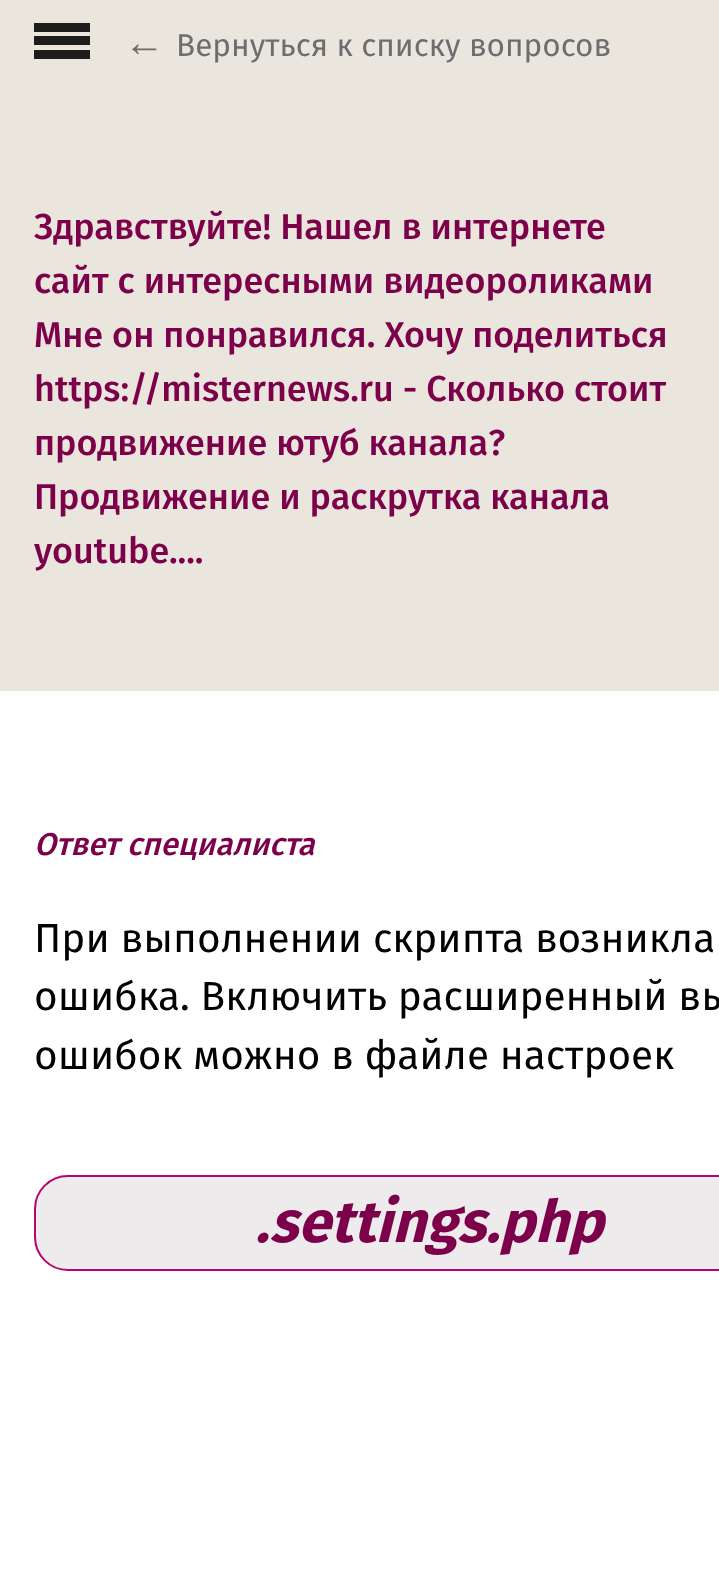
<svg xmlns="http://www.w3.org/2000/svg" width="719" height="1596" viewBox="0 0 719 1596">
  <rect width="100%" height="100%" fill="#ffffff"/>
  <rect x="0" y="0" width="719" height="691" fill="#eae6dd"/>
  <rect x="34" y="23" width="56" height="9" fill="#1d1d1b"/>
  <rect x="34" y="36" width="56" height="9" fill="#1d1d1b"/>
  <rect x="34" y="50" width="56" height="9" fill="#1d1d1b"/>
  <text x="124" y="56" font-family="Liberation Sans" font-size="40.5" fill="#6e6d6e">←</text>
  <text x="176" y="56" font-family="Fira Sans" font-size="31.5" fill="#6e6d6e">Вернуться к списку вопросов</text>
  <text x="34" y="239" font-family="Fira Sans" font-size="36" font-weight="500" fill="#7c014a">Здравствуйте! Нашел в интернете</text>
  <text x="34" y="293" font-family="Fira Sans" font-size="36" font-weight="500" fill="#7c014a">сайт с интересными видеороликами</text>
  <text x="34" y="347" font-family="Fira Sans" font-size="36" font-weight="500" fill="#7c014a">Мне он понравился. Хочу поделиться</text>
  <text x="34" y="401" font-family="Fira Sans" font-size="36" font-weight="500" fill="#7c014a">https://misternews.ru - Сколько стоит</text>
  <text x="34" y="455" font-family="Fira Sans" font-size="36" font-weight="500" fill="#7c014a">продвижение ютуб канала?</text>
  <text x="34" y="509" font-family="Fira Sans" font-size="36" font-weight="500" fill="#7c014a">Продвижение и раскрутка канала</text>
  <text x="34" y="563" font-family="Fira Sans" font-size="36" font-weight="500" fill="#7c014a">youtube....</text>
  <text x="34" y="855" font-family="Fira Sans" font-size="31.5" font-weight="500" font-style="italic" fill="#7c014a">Ответ специалиста</text>
  <text x="34" y="952" font-family="Fira Sans" font-size="40.5" fill="#020001">При выполнении скрипта возникла</text>
  <text x="34" y="1010" font-family="Fira Sans" font-size="40.5" fill="#020001">ошибка. Включить расширенный вы</text>
  <text x="34" y="1069" font-family="Fira Sans" font-size="40.5" fill="#020001">ошибок можно в файле настроек</text>
  <rect x="35" y="1176" width="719" height="94" rx="33" fill="#edebeb" stroke="#b9026f" stroke-width="2"/>
  <text x="255" y="1242" font-family="Fira Sans" font-size="58.5" font-weight="bold" font-style="italic" fill="#7c014a">.settings.php</text>
</svg>
